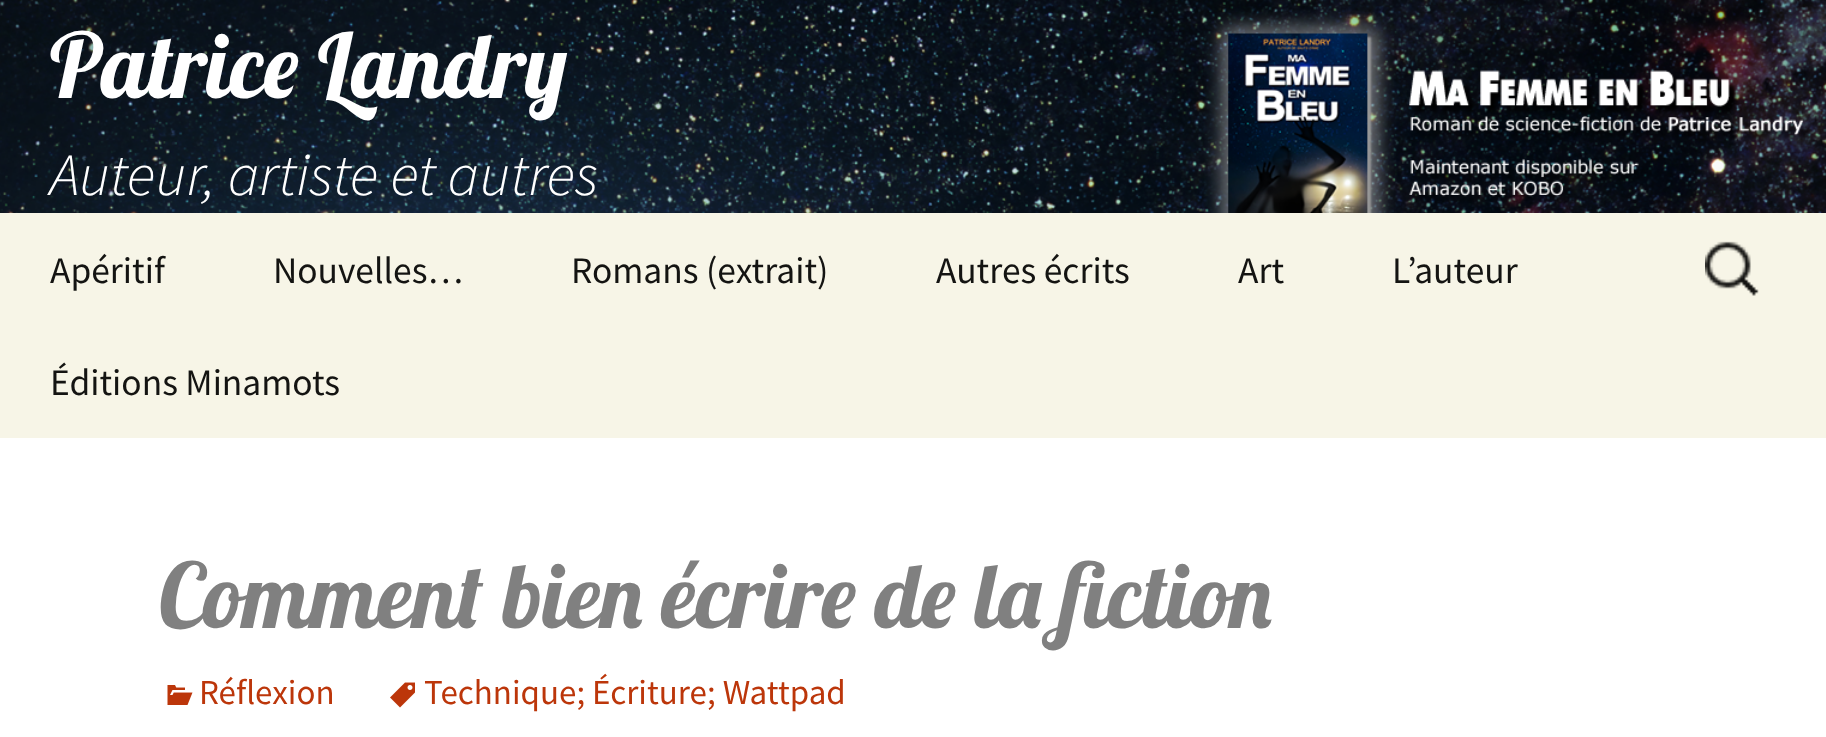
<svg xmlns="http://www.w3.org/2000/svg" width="1826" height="737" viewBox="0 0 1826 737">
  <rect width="100%" height="100%" fill="#ffffff"/>
  <image x="0" y="0" width="1826" height="213" href="img1.png"/>
  <text x="50" y="98" font-family="Lobster" font-size="90" fill="#ffffff">Patrice Landry</text>
  <text x="50" y="195" font-family="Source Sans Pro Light" font-size="60" font-weight="300" font-style="italic" fill="#ffffff">Auteur, artiste et autres</text>
  <rect x="0" y="213" width="1826" height="225" fill="#f7f5e7"/>
  <text x="50" y="283" font-family="Source Sans Pro" font-size="37.5" fill="#141412">Apéritif</text>
  <text x="273" y="283" font-family="Source Sans Pro" font-size="37.5" fill="#141412">Nouvelles…</text>
  <text x="571" y="283" font-family="Source Sans Pro" font-size="37.5" fill="#141412">Romans (extrait)</text>
  <text x="936" y="283" font-family="Source Sans Pro" font-size="37.5" fill="#141412">Autres écrits</text>
  <text x="1238" y="283" font-family="Source Sans Pro" font-size="37.5" fill="#141412">Art</text>
  <text x="1392" y="283" font-family="Source Sans Pro" font-size="37.5" fill="#141412">L’auteur</text>
  <text x="50" y="395" font-family="Source Sans Pro" font-size="37.5" fill="#141412">Éditions Minamots</text>
  <image x="1705" y="241" width="54" height="55" href="img2.png"/>
  <text x="159" y="628" font-family="Lobster" font-size="90" fill="#808080">Comment bien écrire de la fiction</text>
  <image x="167" y="685" width="26" height="20" href="img3.png"/>
  <text x="199" y="704" font-family="Source Sans Pro" font-size="35" fill="#bc360a">Réflexion</text>
  <image x="390" y="682" width="25" height="26" href="img4.png"/>
  <text x="424" y="704" font-family="Source Sans Pro" font-size="35" fill="#bc360a">Technique; Écriture; Wattpad</text>
</svg>
